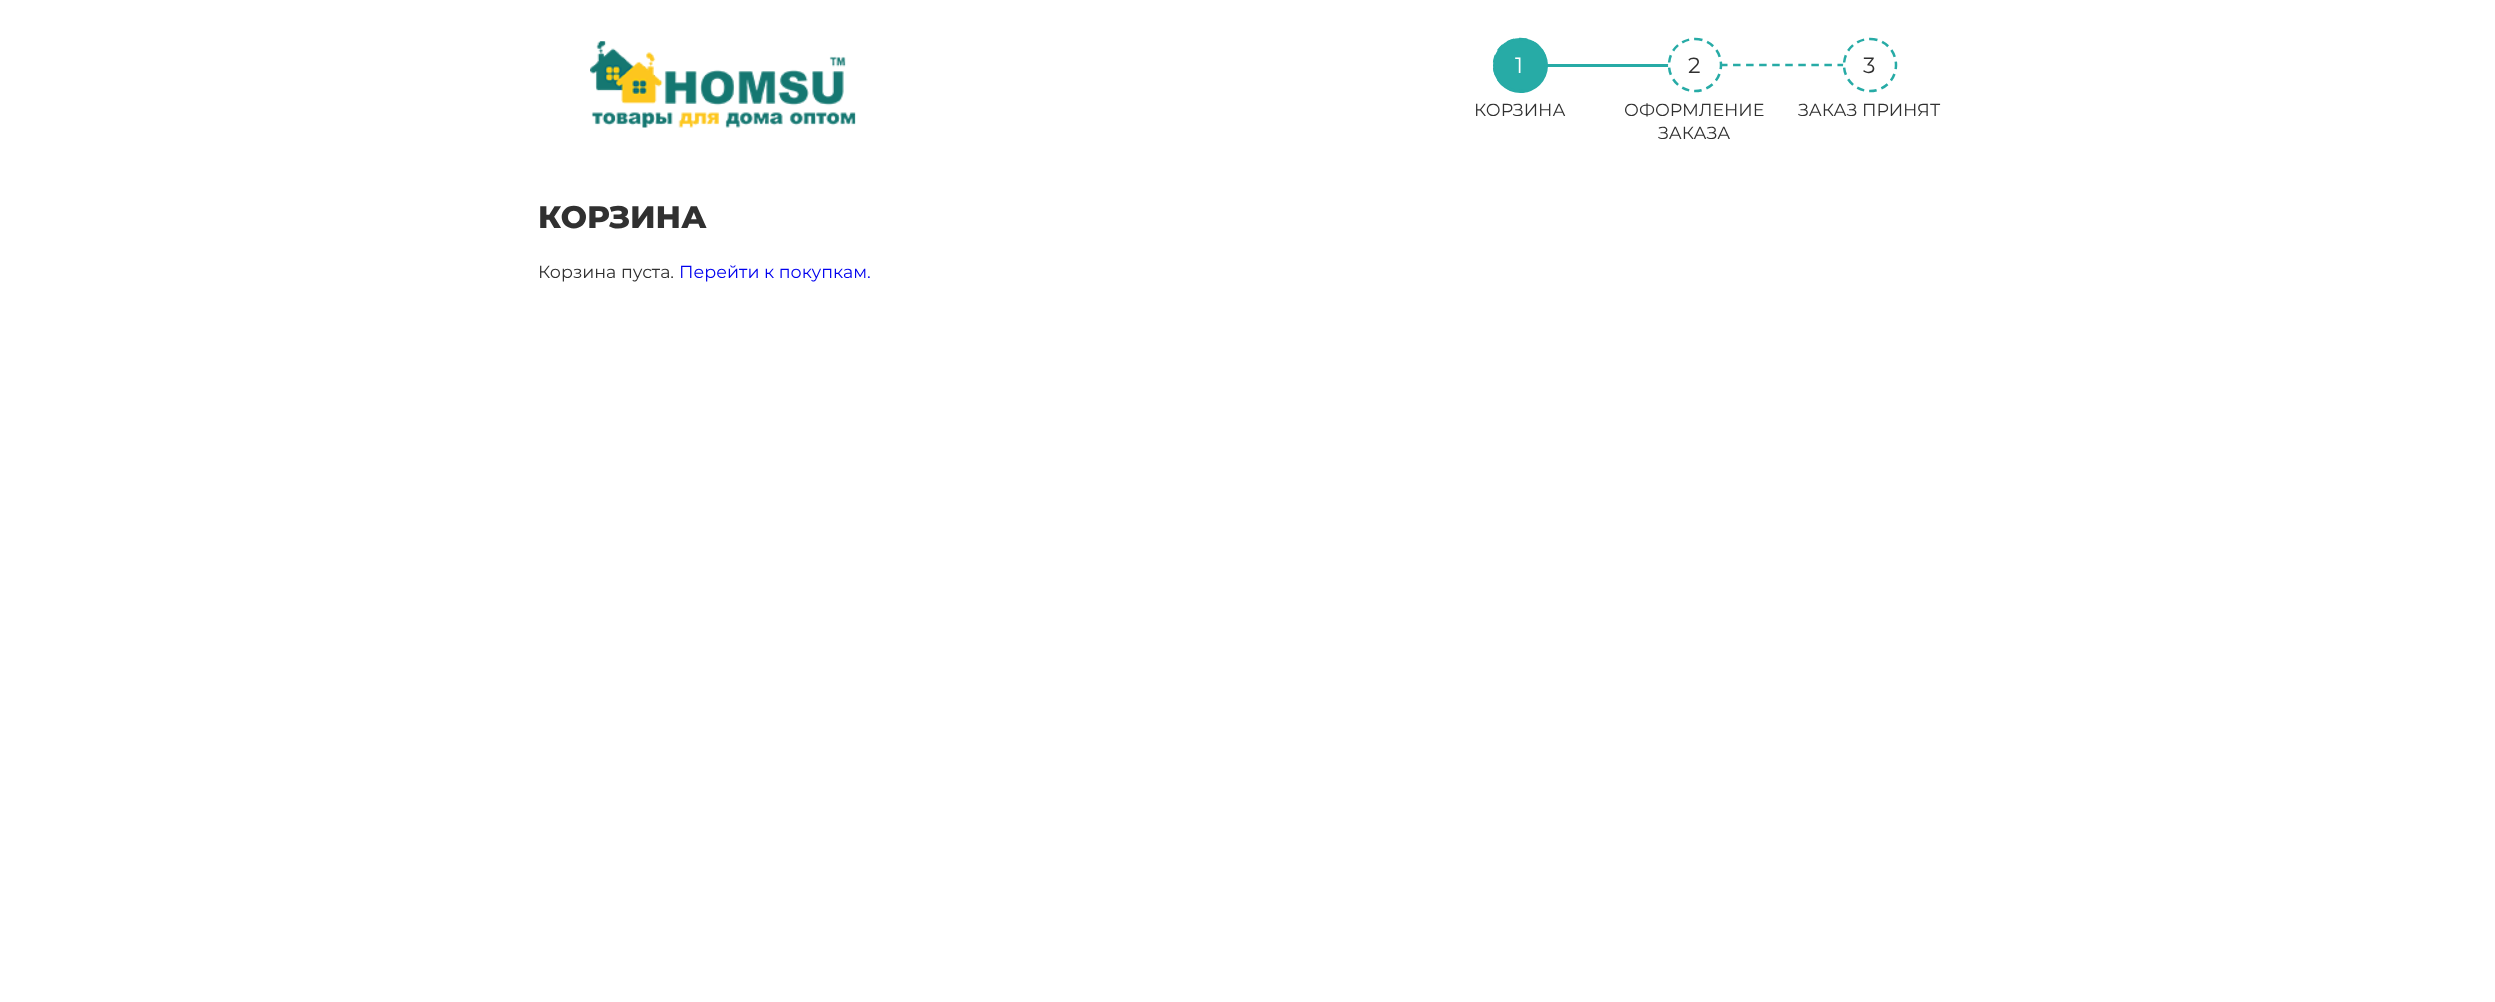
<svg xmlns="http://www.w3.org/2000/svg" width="2495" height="1002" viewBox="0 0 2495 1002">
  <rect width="100%" height="100%" fill="#ffffff"/>
  <image x="590" y="41" width="266" height="87" href="img1.png"/>
  <circle cx="1520.5" cy="65.5" r="27.5" fill="#27aba6"/>
  <path d="M1520 39C1534.5 39 1546 50.5 1546 65C1546 79.5 1534.5 91 1520 91C1505.5 91 1494 79.5 1494 65C1494 50.5 1505.5 39 1520 39Z" fill="none" stroke="#27aba6" stroke-width="2.5" stroke-dasharray="7.5 5"/>
  <text x="1515" y="73" font-family="Montserrat" font-size="22" fill="#ffffff">1</text>
  <rect x="1545" y="64" width="125" height="3" fill="#27aba6"/>
  <text x="1474" y="116" font-family="Montserrat" font-size="17.5" fill="#303030">КОРЗИНА</text>
  <circle cx="1695.5" cy="65.5" r="27.5" fill="#ffffff"/>
  <path d="M1695 39C1709.5 39 1721 50.5 1721 65C1721 79.5 1709.5 91 1695 91C1680.5 91 1669 79.5 1669 65C1669 50.5 1680.5 39 1695 39Z" fill="none" stroke="#27aba6" stroke-width="2.5" stroke-dasharray="7.5 5"/>
  <text x="1688" y="73" font-family="Montserrat" font-size="22" fill="#303030">2</text>
  <path d="M1720 65H1845" fill="none" stroke="#27aba6" stroke-width="2.5" stroke-dasharray="7.5 5.55"/>
  <text x="1624" y="116" font-family="Montserrat" font-size="17.5" fill="#303030">ОФОРМЛЕНИЕ</text>
  <text x="1658" y="139" font-family="Montserrat" font-size="17.5" fill="#303030">ЗАКАЗА</text>
  <circle cx="1870.5" cy="65.5" r="27.5" fill="#ffffff"/>
  <path d="M1870 39C1884.5 39 1896 50.5 1896 65C1896 79.5 1884.5 91 1870 91C1855.5 91 1844 79.5 1844 65C1844 50.5 1855.5 39 1870 39Z" fill="none" stroke="#27aba6" stroke-width="2.5" stroke-dasharray="7.5 5"/>
  <text x="1863" y="73" font-family="Montserrat" font-size="22" fill="#303030">3</text>
  <text x="1798" y="116" font-family="Montserrat" font-size="17.5" fill="#303030">ЗАКАЗ ПРИНЯТ</text>
  <text x="538" y="228" font-family="Montserrat" font-size="31.25" font-weight="800" fill="#303030">КОРЗИНА</text>
  <text x="538" y="278" font-family="Montserrat" font-size="17.5" fill="#303030">Корзина пуста.</text>
  <text x="679" y="278" font-family="Montserrat" font-size="17.5" fill="#0000ee">Перейти к покупкам.</text>
</svg>
